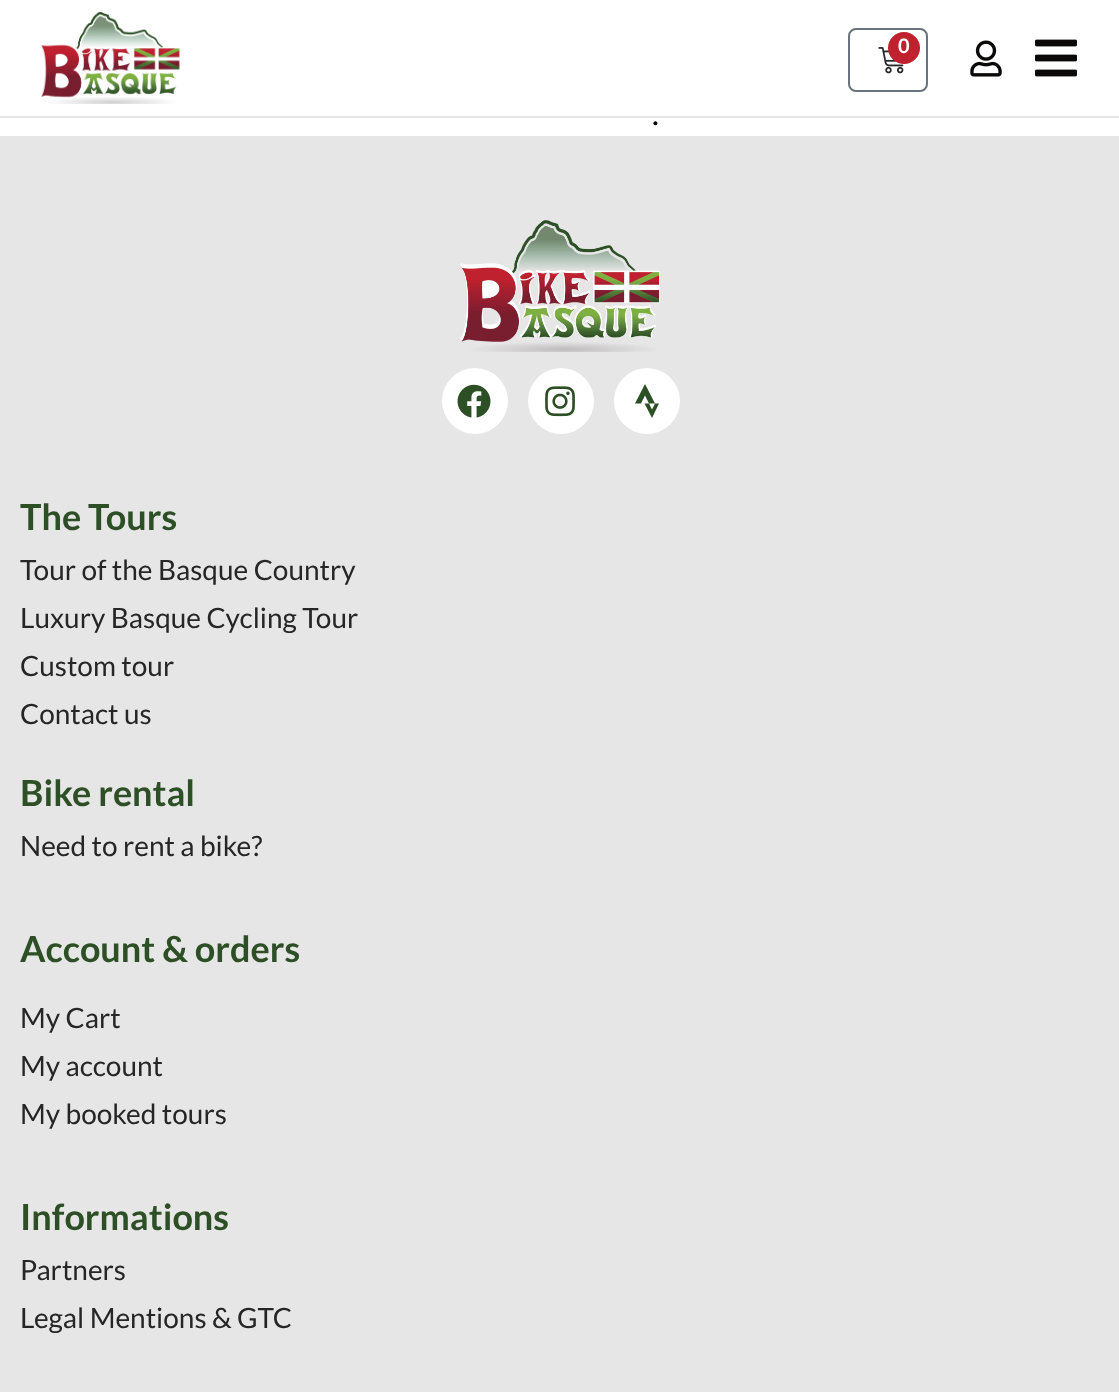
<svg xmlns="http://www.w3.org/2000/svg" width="1119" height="1392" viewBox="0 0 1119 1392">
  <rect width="100%" height="100%" fill="#ffffff"/>
  <rect x="0" y="116" width="1119" height="2" fill="#e7e6e6"/>
  <image x="41" y="12" width="139" height="92" href="img1.png"/>
  <rect x="849" y="29" width="78" height="62" rx="7" fill="none" stroke="#69727d" stroke-width="2"/>
  <image x="878" y="47" width="26" height="27" href="img2.png"/>
  <circle cx="904" cy="48" r="16" fill="#bf212f"/>
  <text x="898" y="53" font-family="Lato" font-size="20" font-weight="bold" fill="#ffffff">0</text>
  <image x="970" y="40" width="32" height="37" href="img3.png"/>
  <image x="1035" y="39" width="42" height="38" href="img4.png"/>
  <text x="652" y="125" font-family="Lato" font-size="32" fill="#000000">.</text>
  <rect x="0" y="136" width="1119" height="1256" fill="#e7e6e6"/>
  <image x="460" y="220" width="200" height="132" href="img5.png"/>
  <circle cx="475" cy="401" r="33" fill="#ffffff"/>
  <image x="457" y="384" width="34" height="34" href="img6.png"/>
  <circle cx="561" cy="401" r="33" fill="#ffffff"/>
  <image x="545" y="386" width="30" height="31" href="img7.png"/>
  <circle cx="647" cy="401" r="33" fill="#ffffff"/>
  <path d="M652 409.5L649 403.5H644.5L652 418L659 403.5H655M645 395.5L649 403.5H655L645 384L635 403.5H641" fill="#2d4f25"/>
  <text x="20" y="530" font-family="Lato" font-size="36" font-weight="bold" fill="#2d4f25">The Tours</text>
  <text x="20" y="580" font-family="Lato" font-size="28" fill="#262626">Tour of the Basque Country</text>
  <text x="20" y="628" font-family="Lato" font-size="28" fill="#262626">Luxury Basque Cycling Tour</text>
  <text x="20" y="676" font-family="Lato" font-size="28" fill="#262626">Custom tour</text>
  <text x="20" y="724" font-family="Lato" font-size="28" fill="#262626">Contact us</text>
  <text x="20" y="806" font-family="Lato" font-size="36" font-weight="bold" fill="#2d4f25">Bike rental</text>
  <text x="20" y="856" font-family="Lato" font-size="28" fill="#262626">Need to rent a bike?</text>
  <text x="20" y="962" font-family="Lato" font-size="36" font-weight="bold" fill="#2d4f25">Account &amp; orders</text>
  <text x="20" y="1028" font-family="Lato" font-size="28" fill="#262626">My Cart</text>
  <text x="20" y="1076" font-family="Lato" font-size="28" fill="#262626">My account</text>
  <text x="20" y="1124" font-family="Lato" font-size="28" fill="#262626">My booked tours</text>
  <text x="20" y="1230" font-family="Lato" font-size="36" font-weight="bold" fill="#2d4f25">Informations</text>
  <text x="20" y="1280" font-family="Lato" font-size="28" fill="#262626">Partners</text>
  <text x="20" y="1328" font-family="Lato" font-size="28" fill="#262626">Legal Mentions &amp; GTC</text>
</svg>
